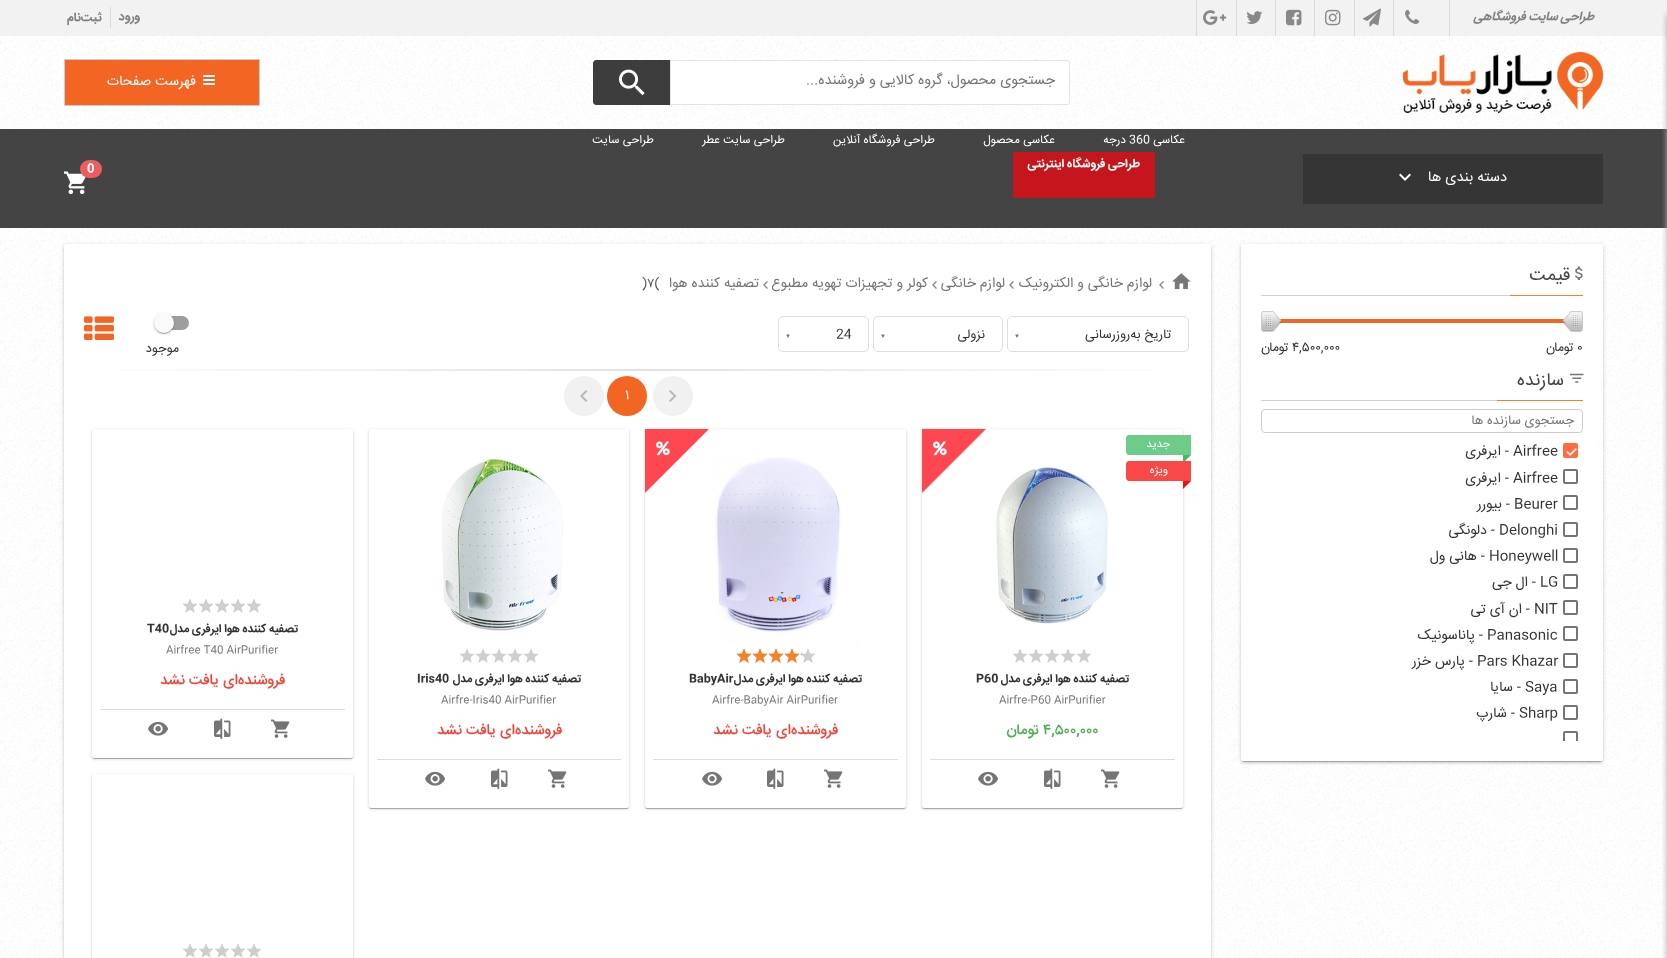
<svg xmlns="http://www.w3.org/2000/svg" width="1667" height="958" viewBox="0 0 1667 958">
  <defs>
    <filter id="blur1" x="-50%" y="-200%" width="200%" height="500%"><feGaussianBlur stdDeviation="3"/></filter>
    <filter id="blur2" x="-50%" y="-200%" width="200%" height="500%"><feGaussianBlur stdDeviation="0.5"/></filter>
    <filter id="blur3" x="-50%" y="-200%" width="200%" height="500%"><feGaussianBlur stdDeviation="2.5"/></filter>
    <filter id="blur4" x="-50%" y="-200%" width="200%" height="500%"><feGaussianBlur stdDeviation="1"/></filter>
    <clipPath id="clip1"><rect x="1291" y="441" width="292" height="300"/></clipPath>
    <filter id="blur5" x="-50%" y="-200%" width="200%" height="500%"><feGaussianBlur stdDeviation="1.5"/></filter>
    <linearGradient id="g1" gradientUnits="userSpaceOnUse" x1="69" y1="370" x2="1206" y2="370"><stop offset="0" stop-color="#ffffff"/><stop offset="0.5" stop-color="#e2e2e2"/><stop offset="1" stop-color="#ffffff"/></linearGradient>
  </defs>
  <rect width="100%" height="100%" fill="#ffffff"/>
  <image x="0" y="36" width="1667" height="922" href="img1.png"/>
  <rect x="0" y="0" width="1667" height="36" fill="#f2f2f2"/>
  <rect x="1449" y="0" width="1" height="36" fill="#dadada"/>
  <text x="1594" y="20" font-family="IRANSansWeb" font-size="12.5" font-weight="bold" font-style="italic" direction="rtl" fill="#808080">طراحی سایت فروشگاهی</text>
  <rect x="1393" y="0" width="1" height="36" fill="#dadada"/>
  <image x="1405" y="9" width="15" height="15" href="img2.png"/>
  <rect x="1354" y="0" width="1" height="36" fill="#dadada"/>
  <image x="1363" y="8" width="18" height="19" href="img3.png"/>
  <rect x="1314" y="0" width="1" height="36" fill="#dadada"/>
  <image x="1325" y="9" width="16" height="17" href="img4.png"/>
  <rect x="1275" y="0" width="1" height="36" fill="#dadada"/>
  <image x="1286" y="9" width="16" height="17" href="img5.png"/>
  <rect x="1236" y="0" width="1" height="36" fill="#dadada"/>
  <image x="1246" y="11" width="16" height="13" href="img6.png"/>
  <rect x="1196" y="0" width="1" height="36" fill="#dadada"/>
  <image x="1203" y="10" width="24" height="15" href="img7.png"/>
  <text x="140" y="20" font-family="IRANSansWeb" font-size="12.5" font-weight="bold" direction="rtl" fill="#808080">ورود</text>
  <rect x="110" y="7" width="1" height="21" fill="#dadada"/>
  <text x="102" y="21" font-family="IRANSansWeb" font-size="12.5" font-weight="bold" direction="rtl" fill="#808080">ثبت‌نام</text>
  <image x="1403" y="52" width="200" height="61" href="img8.png"/>
  <path d="M670.5 60.5H1067C1068.5 60.5 1069.5 61.5 1069.5 63V102C1069.5 103.5 1068.5 104.5 1067 104.5H670.5Z" fill="#ffffff" stroke="#e4e4e4"/>
  <text x="1055" y="84" font-family="IRANSansWeb" font-size="14.4" direction="rtl" fill="#757575">جستجوی محصول، گروه کالایی و فروشنده...</text>
  <path d="M596 60H670V105H596C594.5 105 593 103.5 593 102V63C593 61.5 594.5 60 596 60Z" fill="#3d3d3d"/>
  <image x="619" y="69" width="26" height="27" href="img9.png"/>
  <rect x="0" y="129" width="1667" height="99" fill="#444444"/>
  <rect x="1667" y="14" width="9" height="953" fill="#aaaaaa" filter="url(#blur1)"/>
  <rect x="64.5" y="59.5" width="195" height="46" fill="#f26522" stroke="#cccccc"/>
  <image x="203" y="75" width="12" height="10" href="img10.png"/>
  <text x="196" y="85" font-family="IRANSansWeb" font-size="14" direction="rtl" fill="#ffffff">فهرست صفحات</text>
  <text x="1185" y="143" font-family="IRANSansWeb" font-size="11.6" direction="rtl" fill="#ffffff">عکاسی</text>
  <text x="1129" y="143" font-family="IRANSansWeb" font-size="11.6" fill="#ffffff">360</text>
  <text x="1126" y="143" font-family="IRANSansWeb" font-size="11.6" direction="rtl" fill="#ffffff">درجه</text>
  <text x="1055" y="143" font-family="IRANSansWeb" font-size="11.6" direction="rtl" fill="#ffffff">عکاسی محصول</text>
  <text x="935" y="143" font-family="IRANSansWeb" font-size="11.6" direction="rtl" fill="#ffffff">طراحی فروشگاه آنلاین</text>
  <text x="785" y="143" font-family="IRANSansWeb" font-size="11.6" direction="rtl" fill="#ffffff">طراحی سایت عطر</text>
  <text x="654" y="143" font-family="IRANSansWeb" font-size="11.6" direction="rtl" fill="#ffffff">طراحی سایت</text>
  <rect x="1013" y="152" width="142" height="46" fill="#c4161c"/>
  <text x="1140" y="167" font-family="IRANSansWeb" font-size="12" font-weight="bold" direction="rtl" fill="#ffffff">طراحی فروشگاه اینترنتی</text>
  <image x="64" y="171" width="22" height="24" href="img11.png"/>
  <rect x="80" y="160" width="22" height="18" rx="9" fill="#ee5d5d"/>
  <text x="87" y="172" font-family="IRANSansWeb" font-size="12" font-weight="bold" fill="#ffffff">0</text>
  <rect x="1303" y="154" width="300" height="50" fill="#353535"/>
  <text x="1507" y="181" font-family="IRANSansWeb" font-size="14.4" direction="rtl" fill="#ffffff">دسته بندی ها</text>
  <image x="1399" y="173" width="12" height="8" href="img12.png"/>
  <rect x="1243" y="249" width="358" height="513" fill="#000000" fill-opacity="0.2" filter="url(#blur2)"/>
  <rect x="1241" y="245" width="362" height="517" rx="2" fill="#000000" fill-opacity="0.12" filter="url(#blur3)"/>
  <rect x="1241" y="246" width="362" height="517" rx="2" fill="#000000" fill-opacity="0.14" filter="url(#blur4)"/>
  <rect x="1241" y="244" width="362" height="517" rx="2" fill="#ffffff"/>
  <rect x="1261" y="295" width="249" height="1" fill="#d0d0d0"/>
  <rect x="1510" y="295" width="73" height="1" fill="#f58220"/>
  <image x="1575" y="266" width="8" height="14" href="img13.png"/>
  <text x="1570" y="280" font-family="IRANSansWeb" font-size="18" direction="rtl" fill="#444444">قیمت</text>
  <rect x="1273" y="319" width="298" height="4" fill="#f26522"/>
  <image x="1563" y="311" width="20" height="22" href="img14.png"/>
  <image x="1261" y="311" width="21" height="21" href="img15.png"/>
  <text x="1577" y="351" font-family="IRANSansWeb" font-size="13" fill="#333333">۰</text>
  <text x="1574" y="351" font-family="IRANSansWeb" font-size="13" direction="rtl" fill="#333333">تومان</text>
  <text x="1292" y="351" font-family="IRANSansWeb" font-size="13" fill="#333333">۴,۵۰۰,۰۰۰</text>
  <text x="1289" y="351" font-family="IRANSansWeb" font-size="13" direction="rtl" fill="#333333">تومان</text>
  <rect x="1261" y="400" width="236" height="1" fill="#d0d0d0"/>
  <rect x="1497" y="400" width="86" height="1" fill="#f58220"/>
  <image x="1570" y="373" width="14" height="10" href="img16.png"/>
  <text x="1564" y="385" font-family="IRANSansWeb" font-size="18" direction="rtl" fill="#444444">سازنده</text>
  <rect x="1261.5" y="409.5" width="321" height="23" rx="3.5" fill="none" stroke="#cccccc"/>
  <text x="1574" y="424" font-family="IRANSansWeb" font-size="13" direction="rtl" fill="#757575">جستجوی سازنده ها</text>
  <rect x="1563" y="443" width="15" height="15" rx="2" fill="#ff6d3f"/>
  <path d="M1577 449.5L1570 456V453.5L1575.5 448ZM1570 456L1566 452L1567.5 451L1570 453.5Z" fill="#ffece6"/>
  <text x="1513" y="455" font-family="IRANSansWeb" font-size="14" fill="#333333">Airfree</text>
  <text x="1509" y="455" font-family="IRANSansWeb" font-size="14" direction="rtl" fill="#333333">- ایرفری</text>
  <rect x="1564" y="470" width="13" height="13" rx="1" fill="none" stroke="#757575" stroke-width="2"/>
  <text x="1513" y="482" font-family="IRANSansWeb" font-size="14" fill="#333333">Airfree</text>
  <text x="1509" y="482" font-family="IRANSansWeb" font-size="14" direction="rtl" fill="#333333">- ایرفری</text>
  <rect x="1564" y="496" width="13" height="13" rx="1" fill="none" stroke="#757575" stroke-width="2"/>
  <text x="1514" y="508" font-family="IRANSansWeb" font-size="14" fill="#333333">Beurer</text>
  <text x="1510" y="508" font-family="IRANSansWeb" font-size="14" direction="rtl" fill="#333333">- بیورر</text>
  <rect x="1564" y="523" width="13" height="13" rx="1" fill="none" stroke="#757575" stroke-width="2"/>
  <text x="1499" y="534" font-family="IRANSansWeb" font-size="14" fill="#333333">Delonghi</text>
  <text x="1495" y="534" font-family="IRANSansWeb" font-size="14" direction="rtl" fill="#333333">- دلونگی</text>
  <rect x="1564" y="549" width="13" height="13" rx="1" fill="none" stroke="#757575" stroke-width="2"/>
  <text x="1489" y="560" font-family="IRANSansWeb" font-size="14" fill="#333333">Honeywell</text>
  <text x="1485" y="560" font-family="IRANSansWeb" font-size="14" direction="rtl" fill="#333333">- هانی ول</text>
  <rect x="1564" y="575" width="13" height="13" rx="1" fill="none" stroke="#757575" stroke-width="2"/>
  <text x="1540" y="586" font-family="IRANSansWeb" font-size="14" fill="#333333">LG</text>
  <text x="1536" y="586" font-family="IRANSansWeb" font-size="14" direction="rtl" fill="#333333">- ال جی</text>
  <rect x="1564" y="601" width="13" height="13" rx="1" fill="none" stroke="#757575" stroke-width="2"/>
  <text x="1534" y="613" font-family="IRANSansWeb" font-size="14" fill="#333333">NIT</text>
  <text x="1530" y="613" font-family="IRANSansWeb" font-size="14" direction="rtl" fill="#333333">- ان آی تی</text>
  <rect x="1564" y="627" width="13" height="13" rx="1" fill="none" stroke="#757575" stroke-width="2"/>
  <text x="1487" y="639" font-family="IRANSansWeb" font-size="14" fill="#333333">Panasonic</text>
  <text x="1483" y="639" font-family="IRANSansWeb" font-size="14" direction="rtl" fill="#333333">- پاناسونیک</text>
  <rect x="1564" y="654" width="13" height="13" rx="1" fill="none" stroke="#757575" stroke-width="2"/>
  <text x="1477" y="665" font-family="IRANSansWeb" font-size="14" fill="#333333">Pars Khazar</text>
  <text x="1473" y="665" font-family="IRANSansWeb" font-size="14" direction="rtl" fill="#333333">- پارس خزر</text>
  <rect x="1564" y="680" width="13" height="13" rx="1" fill="none" stroke="#757575" stroke-width="2"/>
  <text x="1525" y="691" font-family="IRANSansWeb" font-size="14" fill="#333333">Saya</text>
  <text x="1521" y="691" font-family="IRANSansWeb" font-size="14" direction="rtl" fill="#333333">- سایا</text>
  <rect x="1564" y="706" width="13" height="13" rx="1" fill="none" stroke="#757575" stroke-width="2"/>
  <text x="1519" y="717" font-family="IRANSansWeb" font-size="14" fill="#333333">Sharp</text>
  <text x="1515" y="717" font-family="IRANSansWeb" font-size="14" direction="rtl" fill="#333333">- شارپ</text>
  <g clip-path="url(#clip1)">
    <rect x="1564" y="732" width="13" height="13" rx="1" fill="none" stroke="#757575" stroke-width="2"/>
  </g>
  <rect x="64" y="245" width="1147" height="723" rx="2" fill="#000000" fill-opacity="0.12" filter="url(#blur3)"/>
  <rect x="64" y="246" width="1147" height="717" rx="2" fill="#000000" fill-opacity="0.14" filter="url(#blur4)"/>
  <rect x="64" y="244" width="1147" height="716" rx="2" fill="#ffffff"/>
  <image x="1172" y="273" width="19" height="17" href="img17.png"/>
  <image x="1159" y="281" width="5" height="8" href="img18.png"/>
  <text x="1152" y="287" font-family="IRANSansWeb" font-size="14" direction="rtl" fill="#757575">لوازم خانگی و الکترونیک</text>
  <image x="1009" y="281" width="5" height="8" href="img18.png"/>
  <text x="1005" y="287" font-family="IRANSansWeb" font-size="14" direction="rtl" fill="#757575">لوازم خانگی</text>
  <image x="932" y="281" width="5" height="8" href="img18.png"/>
  <text x="928" y="287" font-family="IRANSansWeb" font-size="14" direction="rtl" fill="#757575">کولر و تجهیزات تهویه مطبوع</text>
  <image x="763" y="281" width="5" height="8" href="img18.png"/>
  <text x="759" y="287" font-family="IRANSansWeb" font-size="14" direction="rtl" fill="#757575">تصفیه کننده هوا</text>
  <text x="642" y="287" font-family="IRANSansWeb" font-size="13" fill="#58595b">)۷(</text>
  <rect x="1007.5" y="316.5" width="181" height="35" rx="4.5" fill="none" stroke="#dedede"/>
  <text x="1171" y="338" font-family="IRANSansWeb" font-size="13" direction="rtl" fill="#333333">تاریخ به‌روزرسانی</text>
  <text x="1014" y="338" font-family="Liberation Serif" font-size="6" letter-spacing="6" fill="#757575">▼</text>
  <rect x="873.5" y="316.5" width="129" height="35" rx="4.5" fill="none" stroke="#dedede"/>
  <text x="985" y="338" font-family="IRANSansWeb" font-size="13" direction="rtl" fill="#333333">نزولی</text>
  <text x="880" y="338" font-family="Liberation Serif" font-size="6" letter-spacing="6" fill="#757575">▼</text>
  <rect x="778.5" y="316.5" width="90" height="35" rx="4.5" fill="none" stroke="#dedede"/>
  <text x="836" y="338" font-family="IRANSansWeb" font-size="13" fill="#333333">24</text>
  <text x="785" y="338" font-family="Liberation Serif" font-size="6" letter-spacing="6" fill="#757575">▼</text>
  <image x="84" y="316" width="30" height="24" href="img19.png"/>
  <rect x="155" y="316" width="34" height="14" rx="7" fill="#9e9e9e"/>
  <rect x="155" y="316" width="18" height="18" rx="9" fill="#000000" fill-opacity="0.12" filter="url(#blur2)"/>
  <rect x="154" y="314" width="20" height="20" rx="10" fill="#000000" fill-opacity="0.14" filter="url(#blur2)"/>
  <rect x="154" y="314" width="20" height="20" rx="10" fill="#000000" fill-opacity="0.2" filter="url(#blur5)"/>
  <circle cx="164" cy="323" r="10" fill="#fafafa"/>
  <text x="179" y="352" font-family="IRANSansWeb" font-size="13" direction="rtl" fill="#333333">موجود</text>
  <rect x="118" y="369" width="1039" height="2" fill="url(#g1)"/>
  <circle cx="673" cy="396" r="20" fill="#f1f1f1"/>
  <image x="669" y="390" width="8" height="12" href="img20.png"/>
  <circle cx="627" cy="396" r="20" fill="#f26522"/>
  <text x="625" y="399" font-family="IRANSansWeb" font-size="14" fill="#ffffff">۱</text>
  <circle cx="584" cy="396" r="20" fill="#f1f1f1"/>
  <image x="580" y="390" width="8" height="12" href="img21.png"/>
  <rect x="923" y="432" width="259" height="377" rx="1" fill="#000000" fill-opacity="0.12" filter="url(#blur2)"/>
  <rect x="922" y="430" width="261" height="379" rx="2" fill="#000000" fill-opacity="0.14" filter="url(#blur2)"/>
  <rect x="922" y="430" width="261" height="379" rx="2" fill="#000000" fill-opacity="0.2" filter="url(#blur5)"/>
  <rect x="922" y="429" width="261" height="379" rx="2" fill="#ffffff"/>
  <path d="M1129 435H1191V455H1129C1127.5 455 1126 453.5 1126 452V438C1126 436.5 1127.5 435 1129 435Z" fill="#6ecc8b"/>
  <text x="1170" y="447" font-family="IRANSansWeb" font-size="11" direction="rtl" fill="#ffffff">جدید</text>
  <path d="M1183 455H1191L1183 463Z" fill="#42bb67"/>
  <path d="M1129 461H1191V481H1129C1127.5 481 1126 479.5 1126 478V464C1126 462.5 1127.5 461 1129 461Z" fill="#f94848"/>
  <text x="1168" y="473" font-family="IRANSansWeb" font-size="11" direction="rtl" fill="#ffffff">ویژه</text>
  <path d="M1183 481H1191L1183 489Z" fill="#f70d0d"/>
  <path d="M922 429H986L922 493Z" fill="#ff4751"/>
  <image x="933" y="441" width="14" height="15" href="img22.png"/>
  <image x="996" y="467" width="112" height="157" href="img23.png"/>
  <image x="1013" y="648" width="78" height="15" href="img24.png"/>
  <text x="1129" y="682" font-family="IRANSansWeb" font-size="11.6" font-weight="bold" direction="rtl" fill="#333333">تصفیه کننده هوا ایرفری مدل</text>
  <text x="976" y="682" font-family="IRANSansWeb" font-size="11.6" font-weight="bold" fill="#333333">P60</text>
  <text x="999" y="703" font-family="IRANSansWeb" font-size="10.75" fill="#757575">Airfre-P60 AirPurifier</text>
  <text x="1043" y="734" font-family="IRANSansWeb" font-size="14.75" font-weight="500" fill="#4caf50">۴,۵۰۰,۰۰۰</text>
  <text x="1039" y="734" font-family="IRANSansWeb" font-size="14.75" font-weight="500" direction="rtl" fill="#4caf50">تومان</text>
  <rect x="930" y="759" width="245" height="1" fill="#dddddd"/>
  <image x="1101" y="769" width="19" height="19" href="img25.png"/>
  <image x="1044" y="768" width="17" height="21" href="img26.png"/>
  <image x="978" y="771" width="21" height="15" href="img27.png"/>
  <rect x="93" y="432" width="259" height="327" rx="1" fill="#000000" fill-opacity="0.12" filter="url(#blur2)"/>
  <rect x="92" y="430" width="261" height="329" rx="2" fill="#000000" fill-opacity="0.14" filter="url(#blur2)"/>
  <rect x="92" y="430" width="261" height="329" rx="2" fill="#000000" fill-opacity="0.2" filter="url(#blur5)"/>
  <rect x="92" y="429" width="261" height="329" rx="2" fill="#ffffff"/>
  <image x="183" y="598" width="78" height="15" href="img24.png"/>
  <text x="298" y="632" font-family="IRANSansWeb" font-size="11.6" font-weight="bold" direction="rtl" fill="#333333">تصفیه کننده هوا ایرفری مدل</text>
  <text x="147" y="632" font-family="IRANSansWeb" font-size="11.6" font-weight="bold" fill="#333333">T40</text>
  <text x="166" y="653" font-family="IRANSansWeb" font-size="10.75" fill="#757575">Airfree T40 AirPurifier</text>
  <text x="285" y="684" font-family="IRANSansWeb" font-size="14.75" font-weight="500" direction="rtl" fill="#f44336">فروشنده‌ای یافت نشد</text>
  <rect x="100" y="709" width="245" height="1" fill="#dddddd"/>
  <image x="271" y="719" width="19" height="19" href="img25.png"/>
  <image x="214" y="718" width="17" height="21" href="img26.png"/>
  <image x="148" y="721" width="21" height="15" href="img27.png"/>
  <rect x="646" y="432" width="259" height="377" rx="1" fill="#000000" fill-opacity="0.12" filter="url(#blur2)"/>
  <rect x="645" y="430" width="261" height="379" rx="2" fill="#000000" fill-opacity="0.14" filter="url(#blur2)"/>
  <rect x="645" y="430" width="261" height="379" rx="2" fill="#000000" fill-opacity="0.2" filter="url(#blur5)"/>
  <rect x="645" y="429" width="261" height="379" rx="2" fill="#ffffff"/>
  <image x="715" y="457" width="144" height="187" href="img28.png"/>
  <path d="M645 429H709L645 493Z" fill="#ff4751"/>
  <image x="656" y="441" width="14" height="15" href="img22.png"/>
  <image x="737" y="648" width="78" height="15" href="img24.png"/>
  <image x="736" y="649" width="66" height="15" href="img29.png"/>
  <text x="689" y="682" font-family="IRANSansWeb" font-size="11.6" font-weight="bold" fill="#333333">BabyAir</text>
  <text x="862" y="682" font-family="IRANSansWeb" font-size="11.6" font-weight="bold" direction="rtl" fill="#333333">تصفیه کننده هوا ایرفری مدل</text>
  <text x="712" y="703" font-family="IRANSansWeb" font-size="10.75" fill="#757575">Airfre-BabyAir AirPurifier</text>
  <text x="838" y="734" font-family="IRANSansWeb" font-size="14.75" font-weight="500" direction="rtl" fill="#f44336">فروشنده‌ای یافت نشد</text>
  <rect x="653" y="759" width="245" height="1" fill="#dddddd"/>
  <image x="824" y="769" width="19" height="19" href="img25.png"/>
  <image x="767" y="768" width="17" height="21" href="img26.png"/>
  <image x="702" y="771" width="21" height="15" href="img27.png"/>
  <rect x="370" y="432" width="258" height="377" rx="1" fill="#000000" fill-opacity="0.12" filter="url(#blur2)"/>
  <rect x="369" y="430" width="260" height="379" rx="2" fill="#000000" fill-opacity="0.14" filter="url(#blur2)"/>
  <rect x="369" y="430" width="260" height="379" rx="2" fill="#000000" fill-opacity="0.2" filter="url(#blur5)"/>
  <rect x="369" y="429" width="260" height="379" rx="2" fill="#ffffff"/>
  <image x="442" y="459" width="121" height="172" href="img30.png"/>
  <image x="460" y="648" width="78" height="15" href="img24.png"/>
  <text x="581" y="682" font-family="IRANSansWeb" font-size="11.6" font-weight="bold" direction="rtl" fill="#333333">تصفیه کننده هوا ایرفری مدل</text>
  <text x="417" y="682" font-family="IRANSansWeb" font-size="11.6" font-weight="bold" fill="#333333">Iris40</text>
  <text x="441" y="703" font-family="IRANSansWeb" font-size="10.75" fill="#757575">Airfre-Iris40 AirPurifier</text>
  <text x="562" y="734" font-family="IRANSansWeb" font-size="14.75" font-weight="500" direction="rtl" fill="#f44336">فروشنده‌ای یافت نشد</text>
  <rect x="377" y="759" width="244" height="1" fill="#dddddd"/>
  <image x="548" y="769" width="19" height="19" href="img25.png"/>
  <image x="491" y="768" width="17" height="21" href="img26.png"/>
  <image x="425" y="771" width="21" height="15" href="img27.png"/>
  <rect x="92" y="775" width="261" height="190" rx="2" fill="#000000" fill-opacity="0.2" filter="url(#blur5)"/>
  <rect x="92" y="774" width="261" height="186" rx="2" fill="#ffffff"/>
  <image x="183" y="943" width="78" height="15" href="img24.png"/>
</svg>
